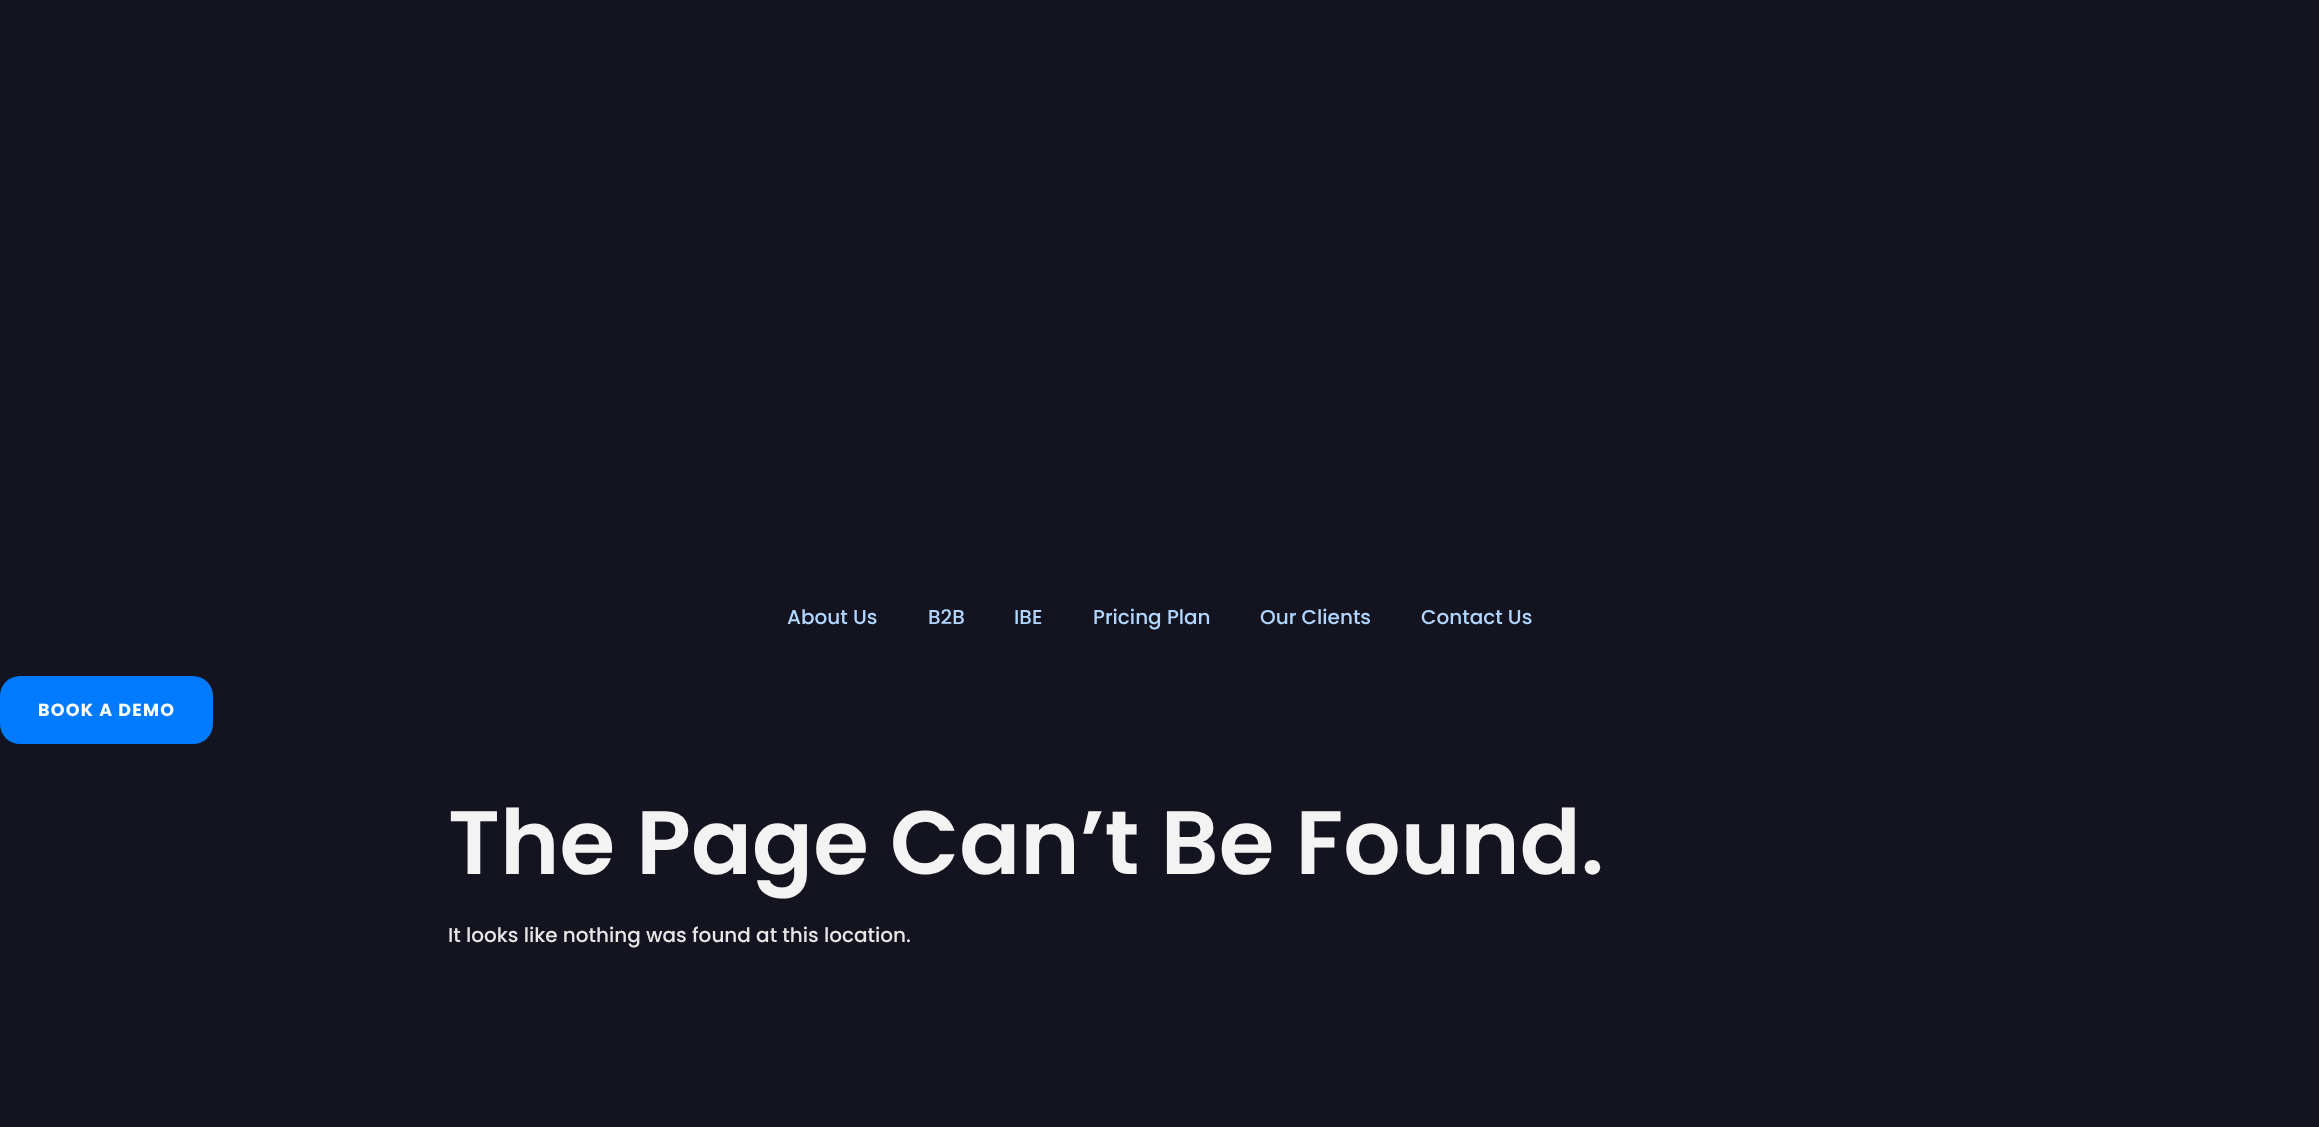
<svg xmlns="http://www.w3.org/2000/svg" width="2319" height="1127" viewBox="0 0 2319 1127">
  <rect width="100%" height="100%" fill="#141421"/>
  <text x="787" y="624" font-family="Poppins" font-size="20" font-weight="500" fill="#b2d7ff">About Us</text>
  <text x="928" y="624" font-family="Poppins" font-size="20" font-weight="500" fill="#b2d7ff">B2B</text>
  <text x="1014" y="624" font-family="Poppins" font-size="20" font-weight="500" fill="#b2d7ff">IBE</text>
  <text x="1093" y="624" font-family="Poppins" font-size="20" font-weight="500" fill="#b2d7ff">Pricing Plan</text>
  <text x="1260" y="624" font-family="Poppins" font-size="20" font-weight="500" fill="#b2d7ff">Our Clients</text>
  <text x="1421" y="624" font-family="Poppins" font-size="20" font-weight="500" fill="#b2d7ff">Contact Us</text>
  <rect x="0" y="676" width="213" height="68" rx="20" fill="#007bff"/>
  <text x="38" y="716" font-family="Poppins" font-size="17.5" font-weight="bold" letter-spacing="1.25" fill="#ffffff">BOOK A DEMO</text>
  <text x="448" y="874" font-family="Poppins" font-size="90" font-weight="600" fill="#f3f3f3">The Page Can’t Be Found.</text>
  <text x="448" y="942" font-family="Poppins" font-size="20" font-weight="500" fill="#e7e7e7">It looks like nothing was found at this location.</text>
</svg>
